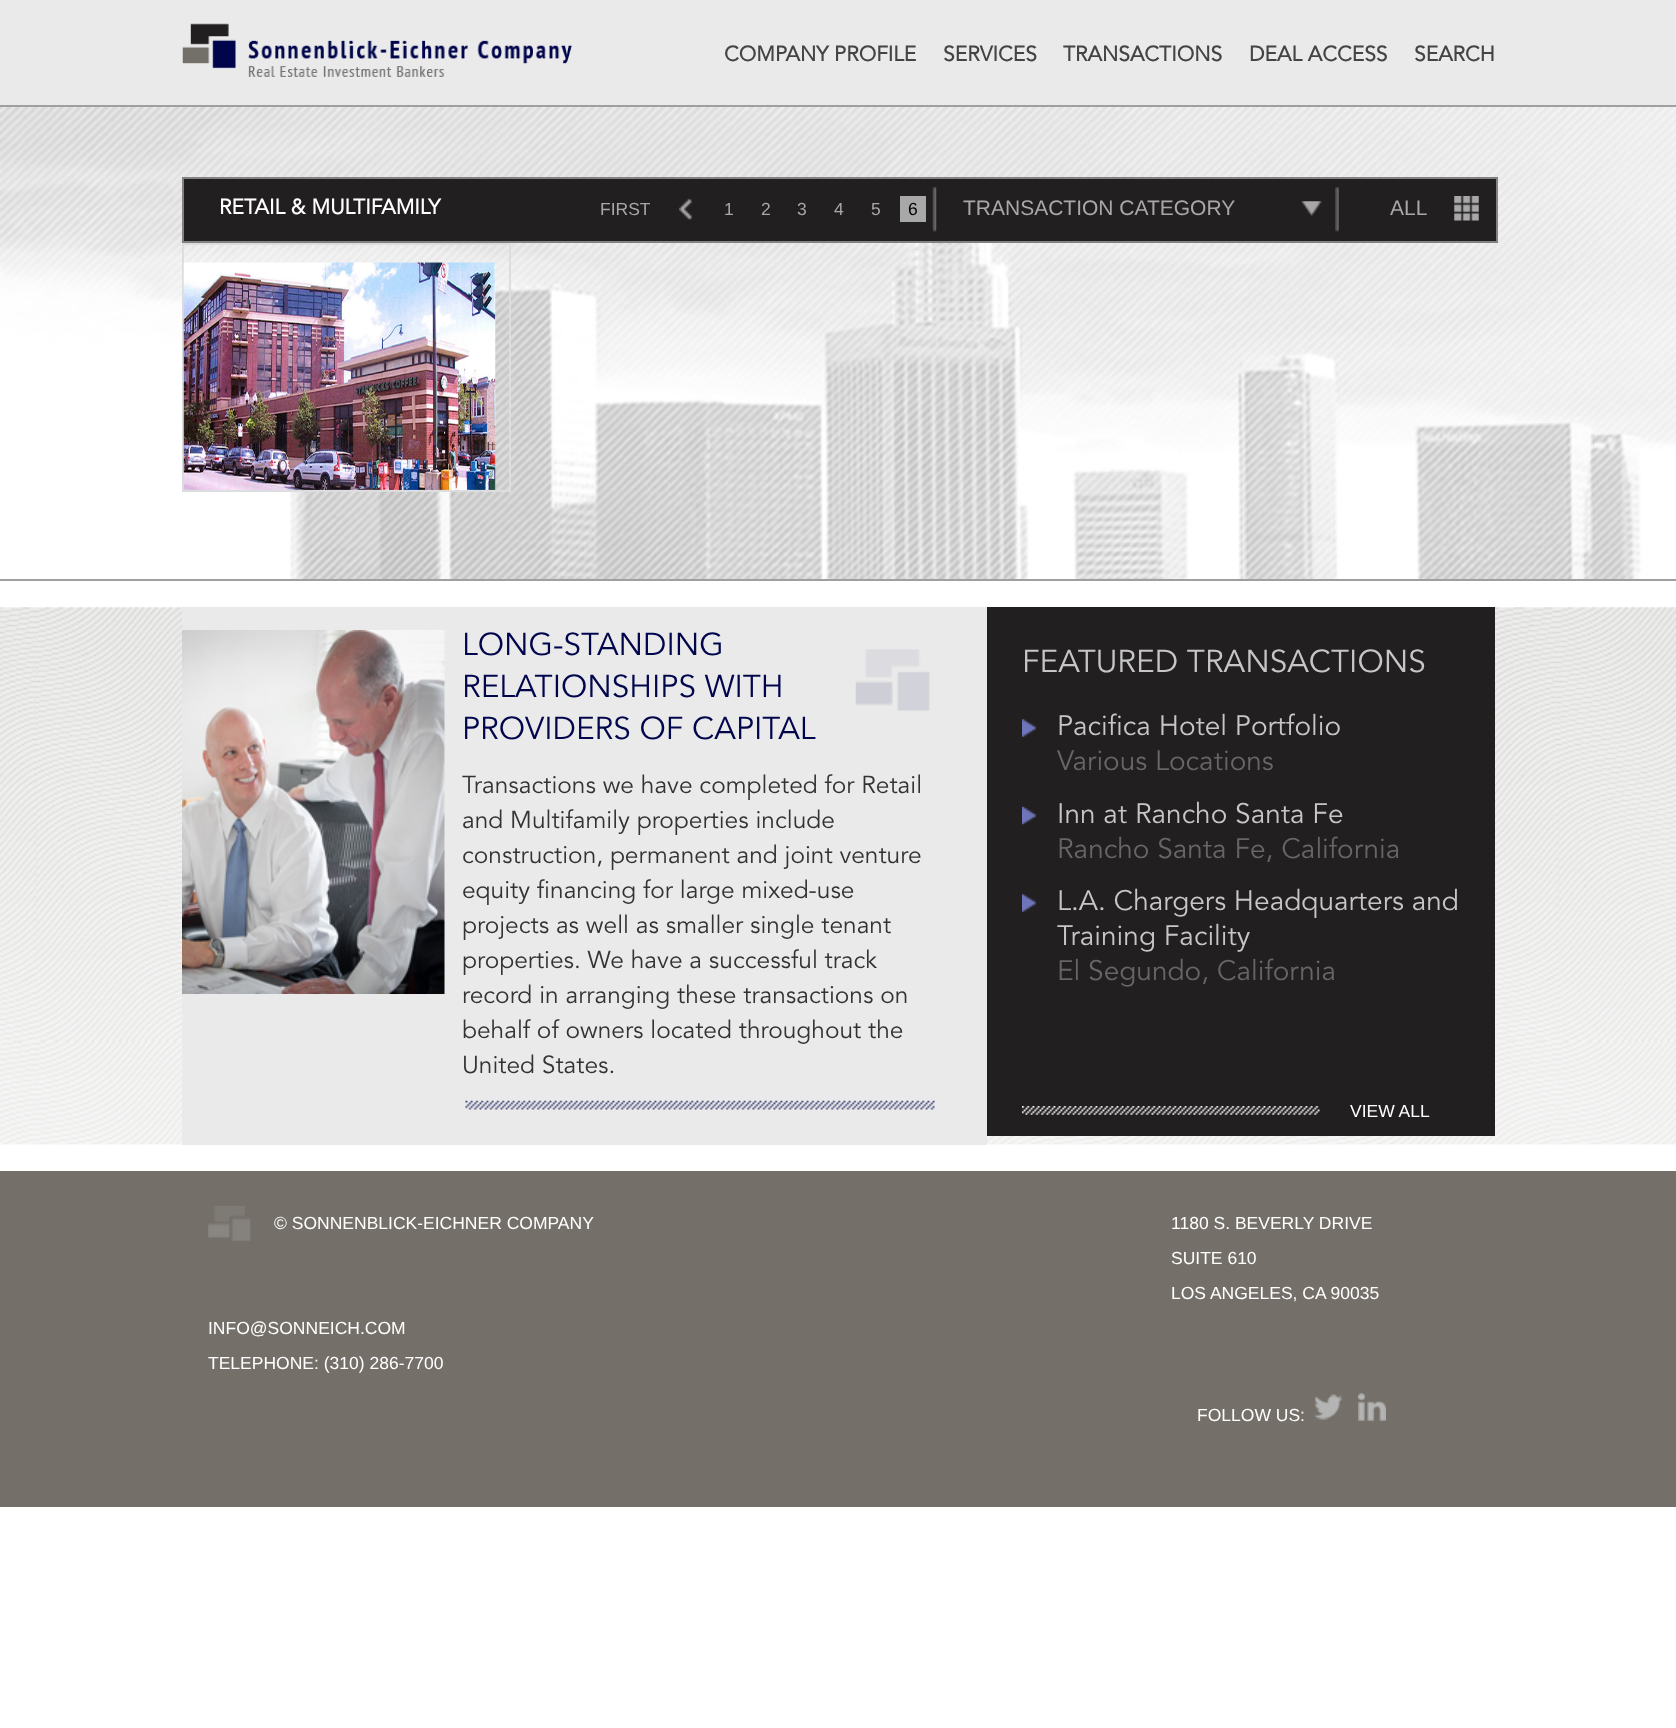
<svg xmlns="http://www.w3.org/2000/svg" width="1676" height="1728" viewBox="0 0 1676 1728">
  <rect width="100%" height="100%" fill="#ffffff"/>
  <rect x="0" y="0" width="1676" height="105" fill="#eaeaea"/>
  <image x="182" y="23" width="390" height="54" href="img1.png"/>
  <text x="724" y="61" font-family="Avenir" font-size="21" font-weight="bold" fill="#444444">COMPANY PROFILE</text>
  <text x="943" y="61" font-family="Avenir" font-size="21" font-weight="bold" fill="#444444">SERVICES</text>
  <text x="1063" y="61" font-family="Avenir" font-size="21" font-weight="bold" fill="#444444">TRANSACTIONS</text>
  <text x="1249" y="61" font-family="Avenir" font-size="21" font-weight="bold" fill="#444444">DEAL ACCESS</text>
  <text x="1414" y="61" font-family="Avenir" font-size="21" font-weight="bold" fill="#444444">SEARCH</text>
  <image x="0" y="107" width="1676" height="472" href="img2.png"/>
  <rect x="0" y="105" width="1676" height="2" fill="#a09e9f"/>
  <rect x="0" y="579" width="1676" height="2" fill="#a09e9f"/>
  <rect x="183" y="178" width="1314" height="64" fill="#221f20" stroke="#838282" stroke-width="2"/>
  <text x="219" y="214" font-family="Avenir" font-size="21" font-weight="bold" fill="#ffffff">RETAIL &amp; MULTIFAMILY</text>
  <image x="932" y="186" width="5" height="46" href="img3.png"/>
  <text x="600" y="215" font-family="Liberation Sans" font-size="17.5" fill="#a8a8a8">FIRST</text>
  <image x="679" y="198" width="14" height="22" href="img4.png"/>
  <text x="724" y="215" font-family="Liberation Sans" font-size="17.5" fill="#a8a8a8">1</text>
  <text x="761" y="215" font-family="Liberation Sans" font-size="17.5" fill="#a8a8a8">2</text>
  <text x="797" y="215" font-family="Liberation Sans" font-size="17.5" fill="#a8a8a8">3</text>
  <text x="834" y="215" font-family="Liberation Sans" font-size="17.5" fill="#a8a8a8">4</text>
  <text x="871" y="215" font-family="Liberation Sans" font-size="17.5" fill="#a8a8a8">5</text>
  <rect x="900" y="196" width="26" height="26" fill="#a8a8a8"/>
  <text x="908" y="215" font-family="Liberation Sans" font-size="17.5" fill="#000000">6</text>
  <image x="1335" y="186" width="4" height="46" href="img5.png"/>
  <image x="1302" y="201" width="20" height="15" href="img6.png"/>
  <text x="963" y="215" font-family="Liberation Sans" font-size="21" fill="#a8a8a8">TRANSACTION CATEGORY</text>
  <image x="1454" y="196" width="25" height="25" href="img7.png"/>
  <text x="1390" y="215" font-family="Liberation Sans" font-size="21" fill="#a8a8a8">ALL</text>
  <rect x="183" y="244" width="327" height="247" fill="none" stroke="#dbdddf" stroke-width="2"/>
  <image x="183" y="262" width="313" height="228" href="img8.png"/>
  <image x="0" y="607" width="1676" height="538" href="img9.png"/>
  <rect x="182" y="607" width="805" height="538" fill="#eaeaea"/>
  <image x="182" y="630" width="263" height="364" href="img10.png"/>
  <text x="462" y="655" font-family="Avenir" font-size="31.5" fill="#00054c">LONG-STANDING</text>
  <text x="462" y="697" font-family="Avenir" font-size="31.5" fill="#00054c">RELATIONSHIPS WITH</text>
  <text x="462" y="739" font-family="Avenir" font-size="31.5" fill="#00054c">PROVIDERS OF CAPITAL</text>
  <text x="462" y="793" font-family="Avenir" font-size="24.5" fill="#333333">Transactions we have completed for Retail</text>
  <text x="462" y="828" font-family="Avenir" font-size="24.5" fill="#333333">and Multifamily properties include</text>
  <text x="462" y="863" font-family="Avenir" font-size="24.5" fill="#333333">construction, permanent and joint venture</text>
  <text x="462" y="898" font-family="Avenir" font-size="24.5" fill="#333333">equity financing for large mixed-use</text>
  <text x="462" y="933" font-family="Avenir" font-size="24.5" fill="#333333">projects as well as smaller single tenant</text>
  <text x="462" y="968" font-family="Avenir" font-size="24.5" fill="#333333">properties. We have a successful track</text>
  <text x="462" y="1003" font-family="Avenir" font-size="24.5" fill="#333333">record in arranging these transactions on</text>
  <text x="462" y="1038" font-family="Avenir" font-size="24.5" fill="#333333">behalf of owners located throughout the</text>
  <text x="462" y="1073" font-family="Avenir" font-size="24.5" fill="#333333">United States.</text>
  <image x="855" y="649" width="75" height="62" href="img11.png"/>
  <image x="465" y="1100" width="470" height="10" href="img12.png"/>
  <rect x="987" y="607" width="508" height="529" fill="#211f20"/>
  <text x="1022" y="672" font-family="Avenir" font-size="31.5" fill="#c6c6c6">FEATURED TRANSACTIONS</text>
  <image x="1022" y="719" width="14" height="18" href="img13.png"/>
  <text x="1057" y="735" font-family="Avenir" font-size="28" fill="#c6c6c6">Pacifica Hotel Portfolio</text>
  <text x="1057" y="770" font-family="Avenir" font-size="28" fill="#666666">Various Locations</text>
  <image x="1022" y="806" width="14" height="19" href="img14.png"/>
  <text x="1057" y="823" font-family="Avenir" font-size="28" fill="#c6c6c6">Inn at Rancho Santa Fe</text>
  <text x="1057" y="858" font-family="Avenir" font-size="28" fill="#666666">Rancho Santa Fe, California</text>
  <image x="1022" y="894" width="14" height="18" href="img13.png"/>
  <text x="1057" y="910" font-family="Avenir" font-size="28" fill="#c6c6c6">L.A. Chargers Headquarters and</text>
  <text x="1057" y="945" font-family="Avenir" font-size="28" fill="#c6c6c6">Training Facility</text>
  <text x="1057" y="980" font-family="Avenir" font-size="28" fill="#666666">El Segundo, California</text>
  <image x="1022" y="1106" width="298" height="9" href="img15.png"/>
  <text x="1350" y="1117" font-family="Liberation Sans" font-size="17.5" fill="#ffffff">VIEW ALL</text>
  <rect x="0" y="1171" width="1676" height="336" fill="#746f69"/>
  <image x="208" y="1206" width="43" height="35" href="img16.png"/>
  <text x="274" y="1229" font-family="Liberation Sans" font-size="17.5" fill="#ffffff">© SONNENBLICK-EICHNER COMPANY</text>
  <text x="1171" y="1229" font-family="Liberation Sans" font-size="17.5" fill="#ffffff">1180 S. BEVERLY DRIVE</text>
  <text x="1171" y="1264" font-family="Liberation Sans" font-size="17.5" fill="#ffffff">SUITE 610</text>
  <text x="1171" y="1299" font-family="Liberation Sans" font-size="17.5" fill="#ffffff">LOS ANGELES, CA 90035</text>
  <text x="208" y="1334" font-family="Liberation Sans" font-size="17.5" fill="#ffffff">INFO@SONNEICH.COM</text>
  <text x="208" y="1369" font-family="Liberation Sans" font-size="17.5" fill="#ffffff">TELEPHONE: (310) 286-7700</text>
  <text x="1197" y="1421" font-family="Liberation Sans" font-size="17.5" fill="#ffffff">FOLLOW US:</text>
  <image x="1314" y="1394" width="29" height="26" href="img17.png"/>
  <image x="1358" y="1393" width="28" height="28" href="img18.png"/>
</svg>
